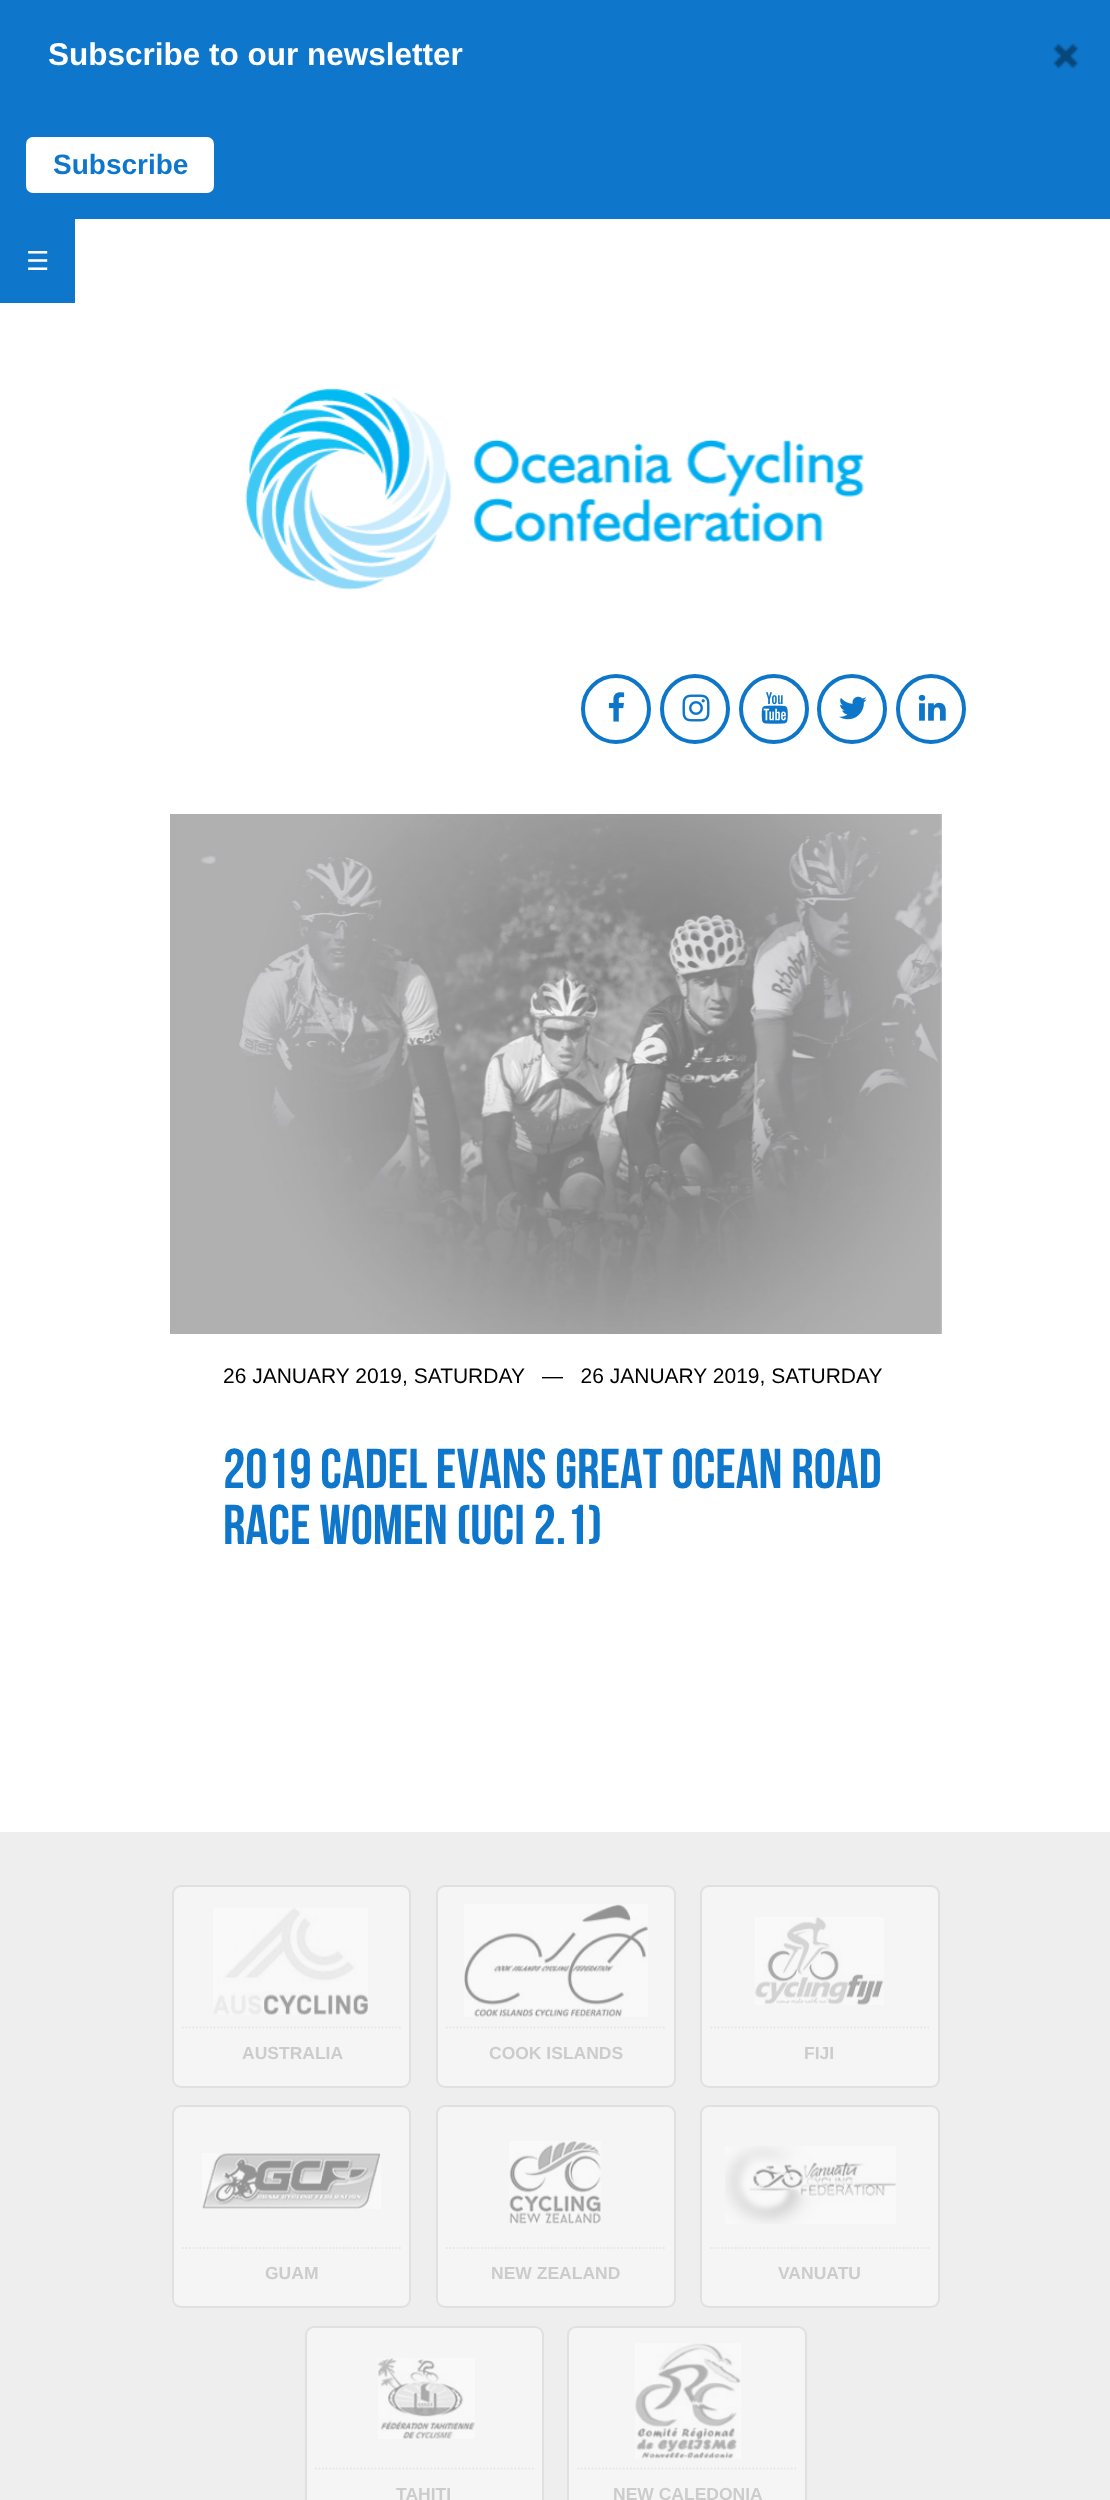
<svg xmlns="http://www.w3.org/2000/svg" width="1110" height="2500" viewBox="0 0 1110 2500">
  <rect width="100%" height="100%" fill="#ffffff"/>
  <rect x="0" y="0" width="1110" height="219" fill="#0e76cb"/>
  <text x="48" y="65" font-family="Liberation Sans" font-size="31.5" font-weight="bold" fill="#ffffff">Subscribe to our newsletter</text>
  <image x="1053" y="43" width="26" height="26" href="img1.png"/>
  <rect x="26" y="137" width="188" height="56" rx="7" fill="#ffffff"/>
  <text x="53" y="174" font-family="Liberation Sans" font-size="28" font-weight="bold" fill="#0e76cb">Subscribe</text>
  <rect x="0" y="219" width="75" height="84" fill="#0e76cb"/>
  <text x="26" y="270" font-family="DejaVu Sans" font-size="26" fill="#ffffff">☰</text>
  <image x="245" y="388" width="619" height="202" href="img2.png"/>
  <circle cx="616" cy="709" r="33" fill="none" stroke="#0e76c9" stroke-width="4"/>
  <image x="608" y="692" width="17" height="30" href="img3.png"/>
  <circle cx="695" cy="709" r="33" fill="none" stroke="#0e76c9" stroke-width="4"/>
  <image x="682" y="694" width="28" height="28" href="img4.png"/>
  <circle cx="774" cy="709" r="33" fill="none" stroke="#0e76c9" stroke-width="4"/>
  <image x="761" y="692" width="27" height="32" href="img5.png"/>
  <circle cx="852" cy="709" r="33" fill="none" stroke="#0e76c9" stroke-width="4"/>
  <image x="839" y="696" width="28" height="24" href="img6.png"/>
  <circle cx="931" cy="709" r="33" fill="none" stroke="#0e76c9" stroke-width="4"/>
  <image x="918" y="694" width="28" height="27" href="img7.png"/>
  <image x="170" y="814" width="772" height="520" href="img8.png"/>
  <text x="223" y="1383" font-family="Liberation Sans" font-size="21" fill="#000000" xml:space="preserve">26 JANUARY 2019, SATURDAY   —   26 JANUARY 2019, SATURDAY</text>
  <text x="223" y="1488" font-family="Bebas Neue" font-size="56" fill="#0e76cb">2019 CADEL EVANS GREAT OCEAN ROAD</text>
  <text x="223" y="1544" font-family="Bebas Neue" font-size="56" fill="#0e76cb">RACE WOMEN (UCI 2.1)</text>
  <rect x="0" y="1832" width="1110" height="668" fill="#eeeeee"/>
  <rect x="173" y="1886" width="237" height="201" rx="8" fill="#f5f5f5" stroke="#e0e0e0" stroke-width="2"/>
  <image x="213" y="1908" width="155" height="107" href="img9.png"/>
  <path d="M182 2027.5H401" fill="none" stroke="#e7e7e7" stroke-width="1.8" stroke-dasharray="1.75 1.75"/>
  <text x="242" y="2059" font-family="Liberation Sans" font-size="17.5" font-weight="bold" fill="#cccccc">AUSTRALIA</text>
  <rect x="437" y="1886" width="238" height="201" rx="8" fill="#f5f5f5" stroke="#e0e0e0" stroke-width="2"/>
  <image x="464" y="1904" width="184" height="113" href="img10.png"/>
  <path d="M446 2027.5H665" fill="none" stroke="#e7e7e7" stroke-width="1.8" stroke-dasharray="1.75 1.75"/>
  <text x="489" y="2059" font-family="Liberation Sans" font-size="17.5" font-weight="bold" fill="#cccccc">COOK ISLANDS</text>
  <rect x="701" y="1886" width="238" height="201" rx="8" fill="#f5f5f5" stroke="#e0e0e0" stroke-width="2"/>
  <image x="755" y="1917" width="129" height="88" href="img11.png"/>
  <path d="M710.5 2027.5H929" fill="none" stroke="#e7e7e7" stroke-width="1.8" stroke-dasharray="1.75 1.75"/>
  <text x="804" y="2059" font-family="Liberation Sans" font-size="17.5" font-weight="bold" fill="#cccccc">FIJI</text>
  <rect x="173" y="2106" width="237" height="201" rx="8" fill="#f5f5f5" stroke="#e0e0e0" stroke-width="2"/>
  <image x="202" y="2153" width="179" height="56" href="img12.png"/>
  <path d="M182 2248H401" fill="none" stroke="#e7e7e7" stroke-width="1.8" stroke-dasharray="1.75 1.75"/>
  <text x="265" y="2279" font-family="Liberation Sans" font-size="17.5" font-weight="bold" fill="#cccccc">GUAM</text>
  <rect x="437" y="2106" width="238" height="201" rx="8" fill="#f5f5f5" stroke="#e0e0e0" stroke-width="2"/>
  <image x="509" y="2141" width="92" height="83" href="img13.png"/>
  <path d="M446 2248H665" fill="none" stroke="#e7e7e7" stroke-width="1.8" stroke-dasharray="1.75 1.75"/>
  <text x="491" y="2279" font-family="Liberation Sans" font-size="17.5" font-weight="bold" fill="#cccccc">NEW ZEALAND</text>
  <rect x="701" y="2106" width="238" height="201" rx="8" fill="#f5f5f5" stroke="#e0e0e0" stroke-width="2"/>
  <image x="725" y="2146" width="171" height="78" href="img14.png"/>
  <path d="M710.5 2248H929" fill="none" stroke="#e7e7e7" stroke-width="1.8" stroke-dasharray="1.75 1.75"/>
  <text x="778" y="2279" font-family="Liberation Sans" font-size="17.5" font-weight="bold" fill="#cccccc">VANUATU</text>
  <rect x="306" y="2327" width="237" height="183" rx="8" fill="#f5f5f5" stroke="#e0e0e0" stroke-width="2"/>
  <image x="378" y="2358" width="97" height="81" href="img15.png"/>
  <path d="M315 2468.5H534" fill="none" stroke="#e7e7e7" stroke-width="1.8" stroke-dasharray="1.75 1.75"/>
  <text x="396" y="2500" font-family="Liberation Sans" font-size="17.5" font-weight="bold" fill="#cccccc">TAHITI</text>
  <rect x="568" y="2327" width="238" height="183" rx="8" fill="#f5f5f5" stroke="#e0e0e0" stroke-width="2"/>
  <image x="635" y="2343" width="106" height="116" href="img16.png"/>
  <path d="M577.5 2468.5H796" fill="none" stroke="#e7e7e7" stroke-width="1.8" stroke-dasharray="1.75 1.75"/>
  <text x="613" y="2500" font-family="Liberation Sans" font-size="17.5" font-weight="bold" fill="#cccccc">NEW CALEDONIA</text>
</svg>
